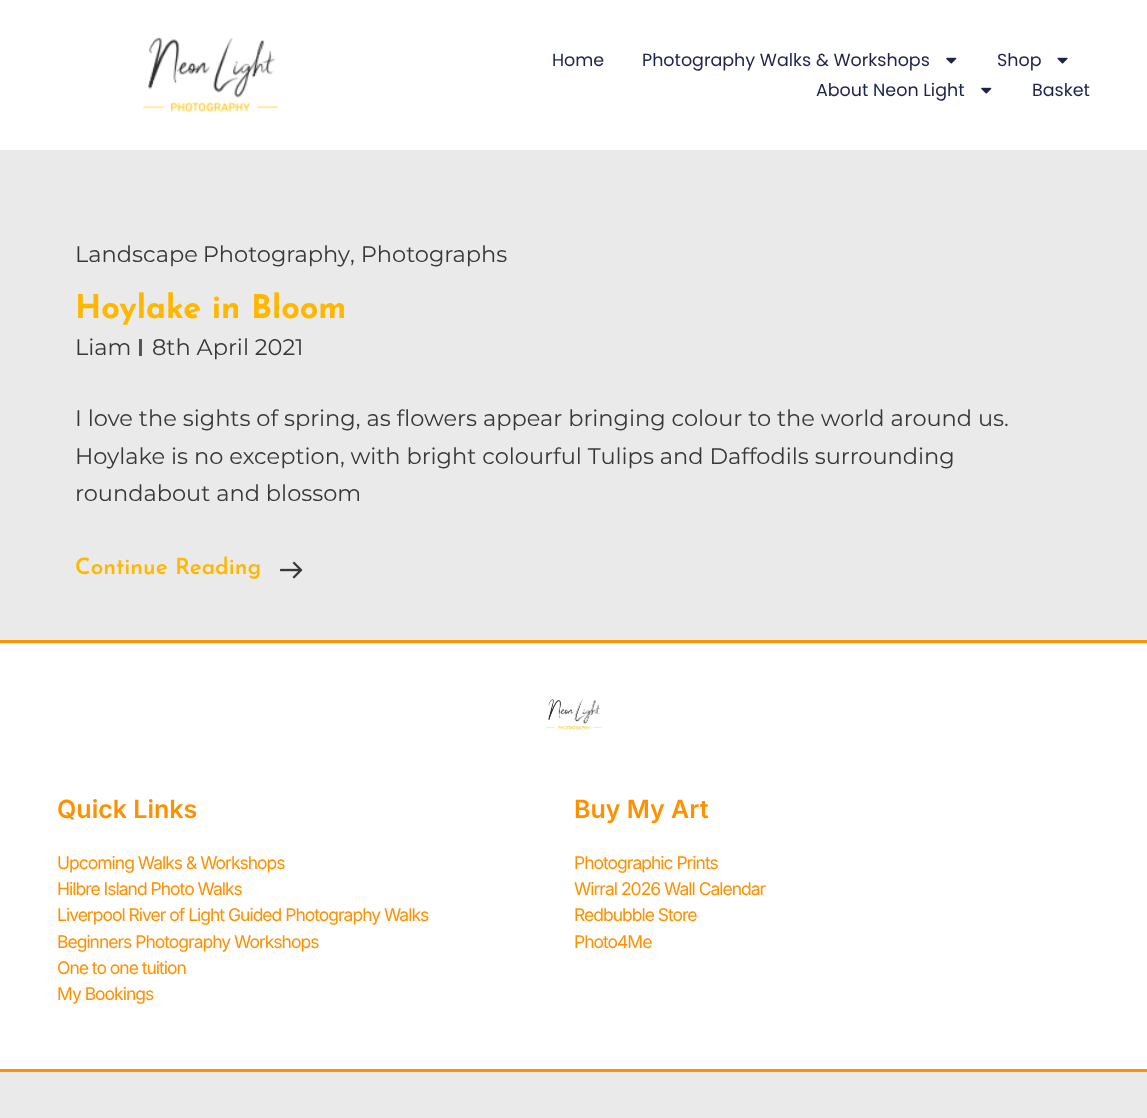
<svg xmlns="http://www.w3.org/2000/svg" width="1147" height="1118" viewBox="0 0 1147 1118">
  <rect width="100%" height="100%" fill="#eaeaea"/>
  <rect x="0" y="0" width="1147" height="150" fill="#ffffff"/>
  <image x="143" y="37" width="136" height="76" href="img1.png"/>
  <text x="552" y="66" font-family="Poppins" font-size="17.5" fill="#1c244b">Home</text>
  <text x="642" y="66" font-family="Poppins" font-size="17.5" fill="#1c244b">Photography Walks &amp; Workshops</text>
  <image x="946" y="57" width="11" height="7" href="img2.png"/>
  <text x="997" y="66" font-family="Poppins" font-size="17.5" fill="#1c244b">Shop</text>
  <image x="1057" y="57" width="11" height="7" href="img3.png"/>
  <text x="816" y="96" font-family="Poppins" font-size="17.5" fill="#1c244b">About Neon Light</text>
  <image x="981" y="87" width="11" height="7" href="img2.png"/>
  <text x="1032" y="96" font-family="Poppins" font-size="17.5" fill="#1c244b">Basket</text>
  <text x="75" y="262" word-spacing="-1" font-family="Montserrat" font-size="22.5" fill="#383838">Landscape Photography</text>
  <text x="350" y="262" font-family="Montserrat" font-size="22.5" fill="#383838">, Photographs</text>
  <text x="75" y="318" font-family="Josefin Sans" font-size="32.5" font-weight="bold" fill="#ffb700">Hoylake in Bloom</text>
  <text x="75" y="355" font-family="Montserrat" font-size="22.5" fill="#383838">Liam</text>
  <rect x="139" y="339" width="3" height="17" fill="#555555"/>
  <text x="152" y="355" font-family="Montserrat" font-size="22.5" fill="#383838">8th April 2021</text>
  <text x="75" y="426" font-family="Montserrat" font-size="22.5" fill="#383838">I love the sights of spring, as flowers appear bringing colour to the world around us.</text>
  <text x="75" y="464" font-family="Montserrat" font-size="22.5" fill="#383838">Hoylake is no exception, with bright colourful Tulips and Daffodils surrounding</text>
  <text x="75" y="501" font-family="Montserrat" font-size="22.5" fill="#383838">roundabout and blossom</text>
  <text x="75" y="574" font-family="Josefin Sans" font-size="22.5" font-weight="600" fill="#ffb700">Continue Reading</text>
  <image x="280" y="561" width="23" height="18" href="img4.png"/>
  <rect x="0" y="643" width="1147" height="426" fill="#ffffff"/>
  <rect x="0" y="640" width="1147" height="3" fill="#ff9000"/>
  <rect x="0" y="1069" width="1147" height="3" fill="#ff9000"/>
  <image x="546" y="699" width="56" height="31" href="img5.png"/>
  <text x="57" y="818" font-family="Inter" font-size="25" font-weight="600" fill="#ff9000">Quick Links</text>
  <text x="57" y="869" font-family="Inter" font-size="17.5" letter-spacing="-1" fill="#ff9000">Upcoming Walks &amp; Workshops</text>
  <text x="57" y="895" font-family="Inter" font-size="17.5" letter-spacing="-1" fill="#ff9000">Hilbre Island Photo Walks</text>
  <text x="57" y="921" font-family="Inter" font-size="17.5" letter-spacing="-1" fill="#ff9000">Liverpool River of Light Guided Photography Walks</text>
  <text x="57" y="948" font-family="Inter" font-size="17.5" letter-spacing="-1" fill="#ff9000">Beginners Photography Workshops</text>
  <text x="57" y="974" font-family="Inter" font-size="17.5" letter-spacing="-1" fill="#ff9000">One to one tuition</text>
  <text x="57" y="1000" font-family="Inter" font-size="17.5" letter-spacing="-1" fill="#ff9000">My Bookings</text>
  <text x="574" y="818" font-family="Inter" font-size="25" font-weight="600" fill="#ff9000">Buy My Art</text>
  <text x="574" y="869" font-family="Inter" font-size="17.5" letter-spacing="-1" fill="#ff9000">Photographic Prints</text>
  <text x="574" y="895" font-family="Inter" font-size="17.5" letter-spacing="-1" fill="#ff9000">Wirral 2026 Wall Calendar</text>
  <text x="574" y="921" font-family="Inter" font-size="17.5" letter-spacing="-1" fill="#ff9000">Redbubble Store</text>
  <text x="574" y="948" font-family="Inter" font-size="17.5" letter-spacing="-1" fill="#ff9000">Photo4Me</text>
</svg>
